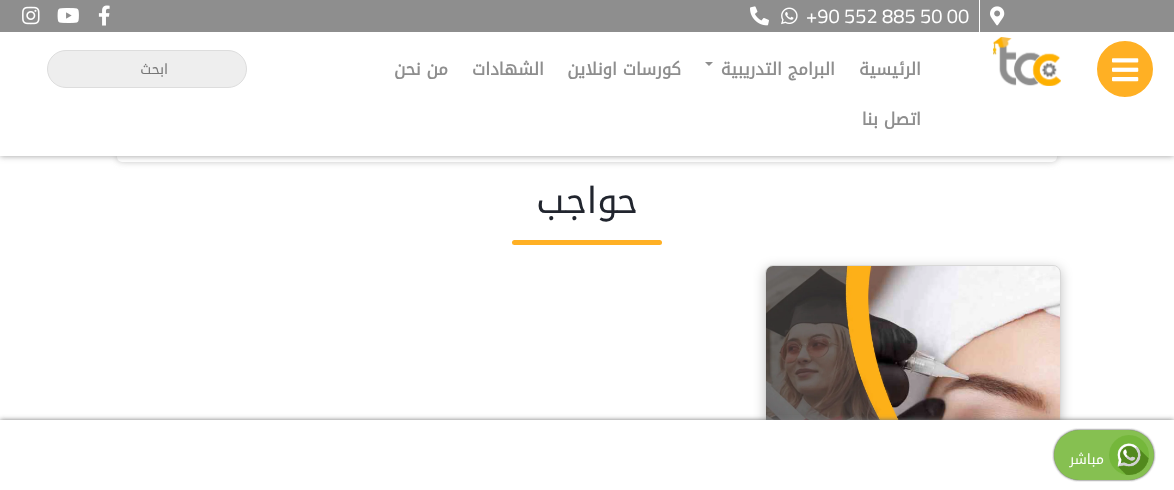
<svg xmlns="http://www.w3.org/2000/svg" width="1174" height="490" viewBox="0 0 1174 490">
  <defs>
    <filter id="blur1" x="-50%" y="-200%" width="200%" height="500%"><feGaussianBlur stdDeviation="3"/></filter>
    <filter id="blur2" x="-50%" y="-200%" width="200%" height="500%"><feGaussianBlur stdDeviation="6"/></filter>
    <filter id="blur3" x="-50%" y="-200%" width="200%" height="500%"><feGaussianBlur stdDeviation="2.5"/></filter>
    <filter id="blur4" x="-50%" y="-200%" width="200%" height="500%"><feGaussianBlur stdDeviation="1"/></filter>
  </defs>
  <rect width="100%" height="100%" fill="#ffffff"/>
  <rect x="117" y="118" width="940" height="44" rx="5" fill="#c7c7c7" filter="url(#blur1)"/>
  <rect x="117" y="118" width="940" height="44" rx="5" fill="#ffffff"/>
  <rect x="0" y="0" width="1174" height="156" fill="#9c9c9c" filter="url(#blur1)"/>
  <rect x="0" y="32" width="1174" height="124" fill="#ffffff"/>
  <rect x="0" y="0" width="1174" height="32" fill="#8e8e8e"/>
  <rect x="979" y="0" width="1" height="32" fill="#ffffff"/>
  <image x="990" y="6" width="15" height="20" href="img1.png"/>
  <text x="806" y="23" font-family="Cairo" font-size="20" fill="#ffffff">+90 552 885 50 00</text>
  <image x="781" y="7" width="17" height="18" href="img2.png"/>
  <image x="750" y="6" width="19" height="20" href="img3.png"/>
  <image x="98" y="5" width="12" height="21" href="img4.png"/>
  <image x="57" y="8" width="22" height="15" href="img5.png"/>
  <image x="22" y="6" width="18" height="19" href="img6.png"/>
  <circle cx="1125" cy="69" r="29" fill="#ffb024" stroke="#ffffff" stroke-width="2"/>
  <image x="1112" y="58" width="27" height="24" href="img7.png"/>
  <image x="993" y="37" width="68" height="49" href="img8.png"/>
  <text x="921" y="75" font-family="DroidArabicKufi" font-size="17" font-weight="bold" direction="rtl" fill="#8e8e8e">الرئيسية</text>
  <text x="835" y="75" font-family="DroidArabicKufi" font-size="17" font-weight="bold" direction="rtl" fill="#8e8e8e">البرامج التدريبية</text>
  <path d="M705 62H713L709 66Z" fill="#8e8e8e"/>
  <text x="681" y="75" font-family="DroidArabicKufi" font-size="17" font-weight="bold" direction="rtl" fill="#8e8e8e">كورسات اونلاين</text>
  <text x="544" y="75" font-family="DroidArabicKufi" font-size="17" font-weight="bold" direction="rtl" fill="#8e8e8e">الشهادات</text>
  <text x="448" y="75" font-family="DroidArabicKufi" font-size="17" font-weight="bold" direction="rtl" fill="#8e8e8e">من نحن</text>
  <text x="921" y="125" font-family="DroidArabicKufi" font-size="17" font-weight="bold" direction="rtl" fill="#8e8e8e">اتصل بنا</text>
  <rect x="47.5" y="50.5" width="199" height="37" rx="18.5" fill="#eeeeee" stroke="#dddddd"/>
  <text x="168" y="74" font-family="DroidArabicKufi" font-size="14" direction="rtl" fill="#757575">ابحث</text>
  <text x="638" y="213" font-family="DroidArabicKufi" font-size="36" direction="rtl" fill="#21252e">حواجب</text>
  <rect x="512" y="240" width="150" height="5" rx="2.5" fill="#ffb024"/>
  <rect x="765" y="268" width="296" height="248" rx="8" fill="#050a0f" fill-opacity="0.25" filter="url(#blur2)"/>
  <rect x="765.5" y="265.5" width="295" height="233" rx="7.5" fill="none" stroke="#d8d8d8"/>
  <image x="766" y="266" width="294" height="154" href="img9.png"/>
  <rect x="0" y="420" width="1174" height="70" fill="#777777" filter="url(#blur3)"/>
  <rect x="0" y="420" width="1174" height="70" fill="#ffffff"/>
  <rect x="1054" y="430" width="100" height="50" rx="25" fill="#333333" filter="url(#blur4)"/>
  <rect x="1054" y="430" width="100" height="50" rx="25" fill="#86c051"/>
  <image x="1109" y="435" width="40" height="40" href="img10.png"/>
  <text x="1104" y="464" font-family="DroidArabicKufi" font-size="14" direction="rtl" fill="#ffffff">مباشر</text>
</svg>
